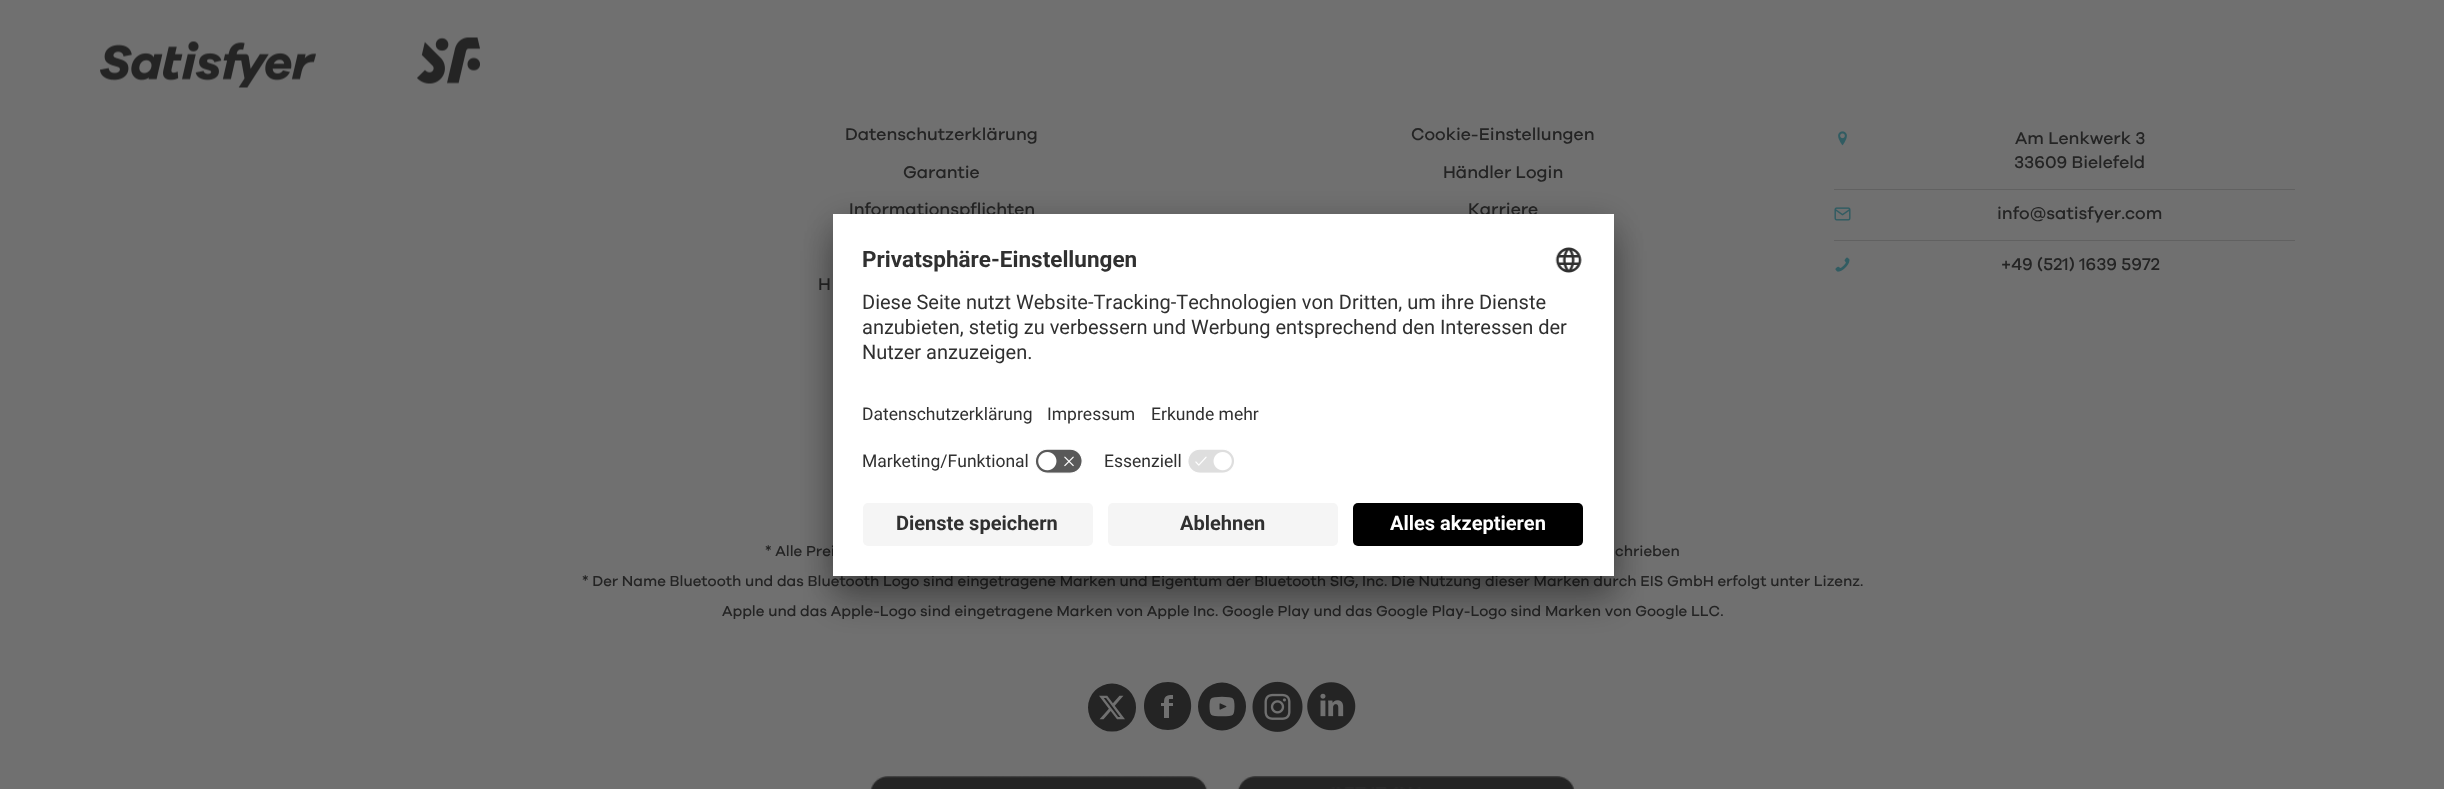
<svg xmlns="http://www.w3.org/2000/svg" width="2444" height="789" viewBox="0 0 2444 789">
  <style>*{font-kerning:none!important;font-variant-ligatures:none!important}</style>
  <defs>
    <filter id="blur1" x="-50%" y="-200%" width="200%" height="500%"><feGaussianBlur stdDeviation="17.5"/></filter>
    <filter id="blur2" x="-50%" y="-200%" width="200%" height="500%"><feGaussianBlur stdDeviation="16"/></filter>
  </defs>
  <rect width="100%" height="100%" fill="#707070"/>
  <image x="100" y="37" width="380" height="51" href="img1.png"/>
  <text x="845" y="140" font-family="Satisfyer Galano" font-size="17.5" font-weight="500" fill="#242424">Datenschutzerklärung</text>
  <text x="903" y="178" font-family="Satisfyer Galano" font-size="17.5" font-weight="500" fill="#242424">Garantie</text>
  <text x="849" y="215" font-family="Satisfyer Galano" font-size="17.5" font-weight="500" fill="#242424">Informationspflichten</text>
  <text x="818" y="290" font-family="Satisfyer Galano" font-size="17.5" font-weight="500" fill="#242424">H</text>
  <text x="1411" y="140" font-family="Satisfyer Galano" font-size="17.5" font-weight="500" fill="#242424">Cookie-Einstellungen</text>
  <text x="1443" y="178" font-family="Satisfyer Galano" font-size="17.5" font-weight="500" fill="#242424">Händler Login</text>
  <text x="1468" y="215" font-family="Satisfyer Galano" font-size="17.5" font-weight="500" fill="#242424">Karriere</text>
  <rect x="1834" y="189" width="461" height="1" fill="#616161"/>
  <image x="1838" y="131" width="9" height="15" href="img2.png"/>
  <text x="2015" y="144" font-family="Satisfyer Galano" font-size="17.5" font-weight="500" fill="#242424">Am Lenkwerk 3</text>
  <text x="2014" y="168" font-family="Satisfyer Galano" font-size="17.5" font-weight="500" fill="#242424">33609 Bielefeld</text>
  <rect x="1834" y="240" width="461" height="1" fill="#616161"/>
  <image x="1834" y="207" width="17" height="14" href="img3.png"/>
  <text x="1997" y="219" font-family="Satisfyer Galano" font-size="17.5" font-weight="500" fill="#242424">info@satisfyer.com</text>
  <image x="1835" y="257" width="15" height="15" href="img4.png"/>
  <text x="2001" y="270" font-family="Satisfyer Galano" font-size="17.5" font-weight="500" fill="#242424">+49 (521) 1639 5972</text>
  <text x="765" y="556" font-family="Satisfyer Galano" font-size="15" font-weight="500" fill="#242424">* Alle Prei</text>
  <text x="1615" y="556" font-family="Satisfyer Galano" font-size="15" font-weight="500" fill="#242424">chrieben</text>
  <text x="582" y="586" font-family="Satisfyer Galano" font-size="15" font-weight="500" fill="#242424">* Der Name Bluetooth und das Bluetooth Logo sind eingetragene Marken und Eigentum der Bluetooth SIG, Inc. Die Nutzung dieser Marken durch EIS GmbH erfolgt unter Lizenz.</text>
  <text x="722" y="616" font-family="Satisfyer Galano" font-size="15" font-weight="500" fill="#242424">Apple und das Apple-Logo sind eingetragene Marken von Apple Inc. Google Play und das Google Play-Logo sind Marken von Google LLC.</text>
  <text x="1088" y="729" font-family="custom" font-size="50" fill="#242424">󐠀</text>
  <path d="M1168 682C1136 682 1136 730 1168 730C1199 730 1199 682 1168 682ZM1173 699C1168 699 1169 698 1169 703H1173V706H1169V718H1164V706H1161V703H1164C1164 696 1166 695 1173 695Z" fill="#242424"/>
  <text x="1198" y="729" font-family="custom" font-size="50" fill="#242424">󐠃</text>
  <image x="1252" y="681" width="51" height="51" href="img5.png"/>
  <image x="1307" y="682" width="49" height="49" href="img6.png"/>
  <image x="870" y="776" width="338" height="13" href="img7.png"/>
  <image x="1237" y="776" width="338" height="13" href="img8.png"/>
  <rect x="833" y="239" width="781" height="362" fill="#000000" fill-opacity="0.3" filter="url(#blur1)"/>
  <rect x="833" y="220" width="781" height="363" fill="#000000" fill-opacity="0.22" filter="url(#blur2)"/>
  <rect x="833" y="214" width="781" height="362" fill="#ffffff"/>
  <text x="862" y="267" font-family="Roboto" font-size="22.5" font-weight="bold" fill="#303030">Privatsphäre-Einstellungen</text>
  <image x="1555" y="247" width="27" height="26" href="img9.png"/>
  <text x="862" y="309" font-family="Roboto" font-size="20" fill="#303030">Diese Seite nutzt Website-Tracking-Technologien von Dritten, um ihre Dienste</text>
  <text x="862" y="334" font-family="Roboto" font-size="20" fill="#303030">anzubieten, stetig zu verbessern und Werbung entsprechend den Interessen der</text>
  <text x="862" y="359" font-family="Roboto" font-size="20" fill="#303030">Nutzer anzuzeigen.</text>
  <text x="862" y="420" font-family="Roboto" font-size="17.5" fill="#303030">Datenschutzerklärung</text>
  <text x="1047" y="420" font-family="Roboto" font-size="17.5" fill="#303030">Impressum</text>
  <text x="1151" y="420" font-family="Roboto" font-size="17.5" fill="#303030">Erkunde mehr</text>
  <text x="862" y="467" font-family="Roboto" font-size="17.5" fill="#303030">Marketing/Funktional</text>
  <image x="1035" y="449" width="48" height="25" href="img10.png"/>
  <text x="1104" y="467" font-family="Roboto" font-size="17.5" fill="#303030">Essenziell</text>
  <image x="1188" y="449" width="46" height="24" href="img11.png"/>
  <rect x="863" y="503" width="230" height="43" rx="5" fill="#f5f5f5"/>
  <text x="896" y="530" font-family="Roboto" font-size="20" font-weight="bold" fill="#303030">Dienste speichern</text>
  <rect x="1108" y="503" width="230" height="43" rx="5" fill="#f5f5f5"/>
  <text x="1180" y="530" font-family="Roboto" font-size="20" font-weight="bold" fill="#303030">Ablehnen</text>
  <rect x="1353" y="503" width="230" height="43" rx="5" fill="#000000"/>
  <text x="1390" y="530" font-family="Roboto" font-size="20" font-weight="bold" fill="#ffffff">Alles akzeptieren</text>
</svg>
